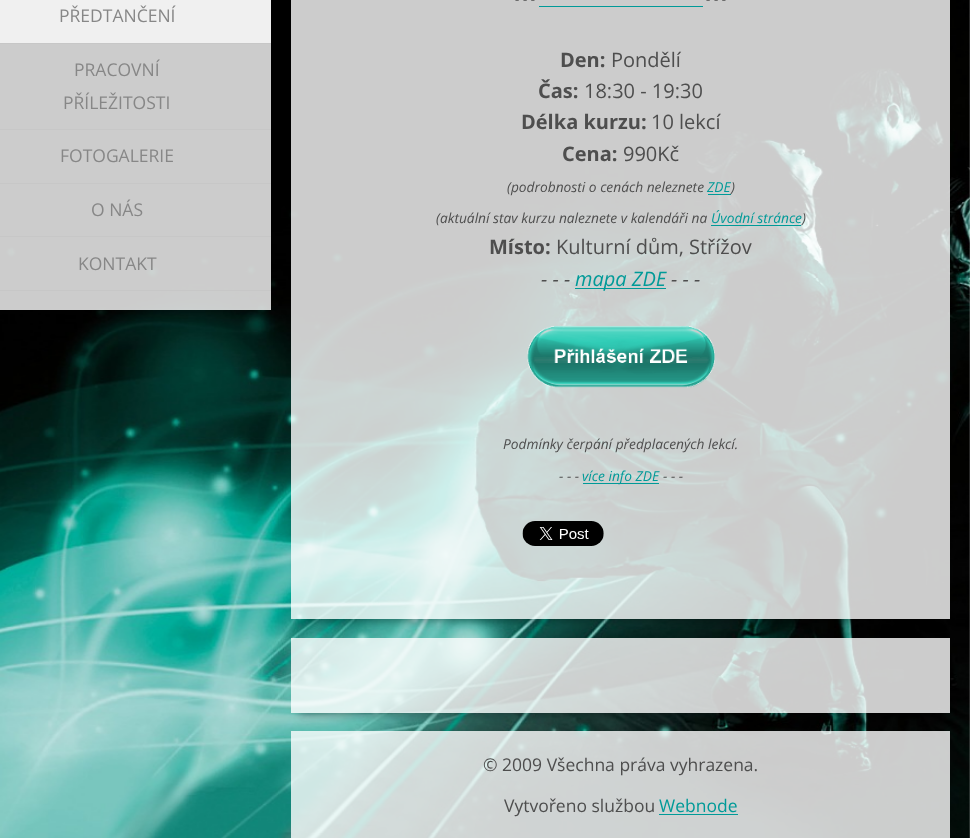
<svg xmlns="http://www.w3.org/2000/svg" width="970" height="838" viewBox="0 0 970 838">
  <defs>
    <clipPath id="clip1"><path d="M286 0H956V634H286ZM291-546H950V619H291Z" clip-rule="evenodd"/></clipPath>
    <filter id="blur1" x="-50%" y="-200%" width="200%" height="500%"><feGaussianBlur stdDeviation="4"/></filter>
    <clipPath id="clip2"><path d="M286 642H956V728H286ZM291 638H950V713H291Z" clip-rule="evenodd"/></clipPath>
  </defs>
  <rect width="100%" height="100%" fill="#ffffff"/>
  <image x="0" y="0" width="970" height="838" href="img1.png"/>
  <rect x="0" y="44" width="271" height="246" fill="#ffffff" fill-opacity="0.8"/>
  <rect x="0" y="0" width="271" height="43" fill="#f0f0f0"/>
  <rect x="0" y="43" width="271" height="1" fill="#c7c7c7"/>
  <text x="59" y="22" font-family="Open Sans" font-size="17.5" fill="#878787">PŘEDTANČENÍ</text>
  <rect x="0" y="129" width="271" height="1" fill="#c7c7c7"/>
  <text x="74" y="76" font-family="Open Sans" font-size="17.5" fill="#878787">PRACOVNÍ</text>
  <text x="63" y="109" font-family="Open Sans" font-size="17.5" fill="#878787">PŘÍLEŽITOSTI</text>
  <rect x="0" y="183" width="271" height="1" fill="#c7c7c7"/>
  <text x="60" y="162" font-family="Open Sans" font-size="17.5" fill="#878787">FOTOGALERIE</text>
  <rect x="0" y="236" width="271" height="1" fill="#c7c7c7"/>
  <text x="91" y="216" font-family="Open Sans" font-size="17.5" fill="#878787">O NÁS</text>
  <rect x="0" y="290" width="271" height="1" fill="#c7c7c7"/>
  <text x="78" y="270" font-family="Open Sans" font-size="17.5" fill="#878787">KONTAKT</text>
  <rect x="0" y="291" width="271" height="19" fill="#ffffff" fill-opacity="0.8"/>
  <g clip-path="url(#clip1)">
    <rect x="299" y="-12" width="644" height="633" fill="#000000" fill-opacity="0.35" filter="url(#blur1)"/>
  </g>
  <rect x="291" y="0" width="659" height="521" fill="#ffffff" fill-opacity="0.8"/>
  <text x="515" y="4" font-family="Open Sans" font-size="13.75" font-style="italic" fill="#4e4e4e">- - -</text>
  <rect x="539" y="6" width="164" height="1" fill="#009a98"/>
  <text x="706" y="4" font-family="Open Sans" font-size="13.75" font-style="italic" fill="#4e4e4e">- - -</text>
  <text x="560" y="67" font-family="Open Sans" font-size="20" font-weight="bold" fill="#4e4e4e">Den:</text>
  <text x="611" y="67" font-family="Open Sans" font-size="20" fill="#4e4e4e">Pondělí</text>
  <text x="538" y="98" font-family="Open Sans" font-size="20" font-weight="bold" fill="#4e4e4e">Čas:</text>
  <text x="584" y="98" font-family="Open Sans" font-size="20" fill="#4e4e4e">18:30 - 19:30</text>
  <text x="521" y="129" font-family="Open Sans" font-size="20" font-weight="bold" fill="#4e4e4e">Délka kurzu:</text>
  <text x="651" y="129" font-family="Open Sans" font-size="20" fill="#4e4e4e">10 lekcí</text>
  <text x="562" y="161" font-family="Open Sans" font-size="20" font-weight="bold" fill="#4e4e4e">Cena:</text>
  <text x="623" y="161" font-family="Open Sans" font-size="20" fill="#4e4e4e">990Kč</text>
  <text x="507" y="192" font-family="Open Sans" font-size="13.75" font-style="italic" fill="#4e4e4e">(podrobnosti o cenách neleznete</text>
  <text x="707" y="192" font-family="Open Sans" font-size="13.75" font-style="italic" fill="#009a98">ZDE</text>
  <rect x="708" y="194" width="23" height="1" fill="#009a98"/>
  <text x="731" y="192" font-family="Open Sans" font-size="13.75" font-style="italic" fill="#4e4e4e">)</text>
  <text x="436" y="223" font-family="Open Sans" font-size="13.75" font-style="italic" fill="#4e4e4e">(aktuální stav kurzu naleznete v kalendáři na</text>
  <text x="711" y="223" font-family="Open Sans" font-size="13.75" font-style="italic" fill="#009a98">Úvodní stránce</text>
  <rect x="711" y="225" width="90" height="1" fill="#009a98"/>
  <text x="802" y="223" font-family="Open Sans" font-size="13.75" font-style="italic" fill="#4e4e4e">)</text>
  <text x="489" y="254" font-family="Open Sans" font-size="20" font-weight="bold" fill="#4e4e4e">Místo:</text>
  <text x="556" y="254" font-family="Open Sans" font-size="20" fill="#4e4e4e">Kulturní dům, Střížov</text>
  <text x="541" y="286" font-family="Open Sans" font-size="20" font-style="italic" fill="#4e4e4e">- - -</text>
  <rect x="575" y="288" width="91" height="1" fill="#009a98"/>
  <text x="575" y="286" font-family="Open Sans" font-size="20" font-style="italic" fill="#009a98">mapa ZDE</text>
  <text x="671" y="286" font-family="Open Sans" font-size="20" font-style="italic" fill="#4e4e4e">- - -</text>
  <image x="527" y="326" width="188" height="62" href="img2.png"/>
  <text x="503" y="449" font-family="Open Sans" font-size="13.75" font-style="italic" fill="#4e4e4e">Podmínky čerpání předplacených lekcí.</text>
  <text x="559" y="481" font-family="Open Sans" font-size="13.75" font-style="italic" fill="#4e4e4e">- - -</text>
  <rect x="583" y="483" width="76" height="1" fill="#009a98"/>
  <text x="582" y="481" font-family="Open Sans" font-size="13.75" font-style="italic" fill="#009a98">více info ZDE</text>
  <text x="663" y="481" font-family="Open Sans" font-size="13.75" font-style="italic" fill="#4e4e4e">- - -</text>
  <rect x="291" y="521" width="659" height="98" fill="#ffffff" fill-opacity="0.8"/>
  <image x="522" y="521" width="82" height="25" href="img3.png"/>
  <g clip-path="url(#clip2)">
    <rect x="299" y="655" width="644" height="60" fill="#000000" fill-opacity="0.35" filter="url(#blur1)"/>
  </g>
  <rect x="291" y="638" width="659" height="37" fill="#ffffff" fill-opacity="0.8"/>
  <rect x="291" y="675" width="659" height="38" fill="#ffffff" fill-opacity="0.8"/>
  <rect x="291" y="731" width="659" height="107" fill="#ffffff" fill-opacity="0.8"/>
  <text x="483" y="771" font-family="Open Sans" font-size="17.5" fill="#4e4e4e">© 2009 Všechna práva vyhrazena.</text>
  <text x="504" y="812" font-family="Open Sans" font-size="17.5" fill="#4e4e4e">Vytvořeno službou</text>
  <text x="659" y="812" font-family="Open Sans" font-size="17.5" fill="#009a98">Webnode</text>
  <rect x="659" y="814" width="79" height="1" fill="#009a98"/>
</svg>
